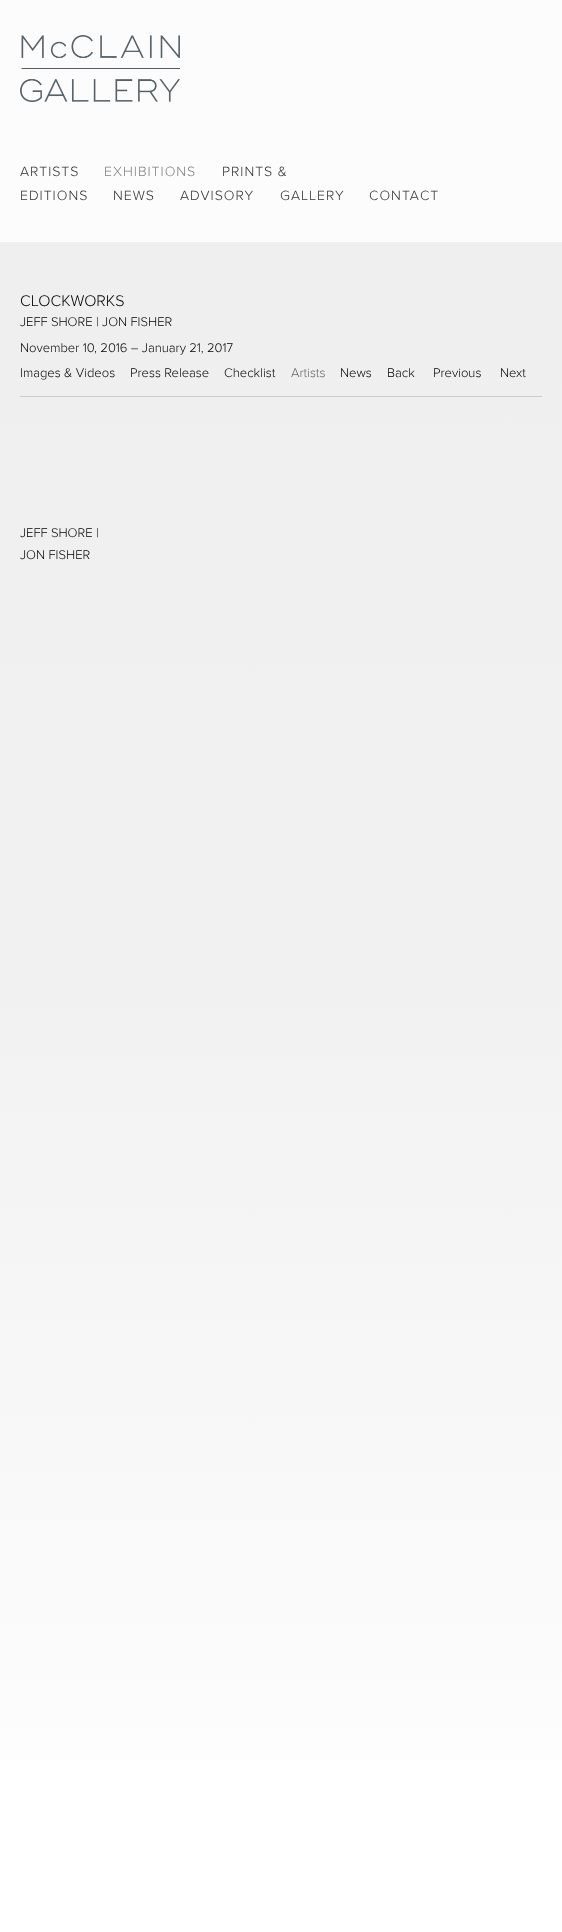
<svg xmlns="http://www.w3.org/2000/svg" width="562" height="1932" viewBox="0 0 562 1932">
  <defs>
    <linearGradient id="g1" gradientUnits="userSpaceOnUse" x1="281" y1="0" x2="281" y2="1932"><stop offset="0" stop-color="#f02f17"/><stop offset="0" stop-color="#eeeeee"/><stop offset="0.5" stop-color="#f1f1f1"/><stop offset="1" stop-color="#ffffff"/></linearGradient>
  </defs>
  <rect width="100%" height="100%" fill="#ffffff"/>
  <rect x="0" y="242" width="562" height="1518" fill="url(#g1)"/>
  <rect x="0" y="0" width="562" height="242" fill="#fcfcfc"/>
  <image x="20" y="35" width="160" height="67" href="img1.png"/>
  <text x="20" y="176" font-family="'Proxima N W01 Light'" font-size="14" font-weight="300" letter-spacing="1" fill="#303030">ARTISTS</text>
  <text x="104" y="176" font-family="'Proxima N W01 Light'" font-size="14" font-weight="300" letter-spacing="1" fill="#818181">EXHIBITIONS</text>
  <text x="222" y="176" font-family="'Proxima N W01 Light'" font-size="14" font-weight="300" letter-spacing="1" fill="#303030">PRINTS &amp;</text>
  <text x="20" y="200" font-family="'Proxima N W01 Light'" font-size="14" font-weight="300" letter-spacing="1" fill="#303030">EDITIONS</text>
  <text x="113" y="200" font-family="'Proxima N W01 Light'" font-size="14" font-weight="300" letter-spacing="1" fill="#303030">NEWS</text>
  <text x="180" y="200" font-family="'Proxima N W01 Light'" font-size="14" font-weight="300" letter-spacing="1" fill="#303030">ADVISORY</text>
  <text x="280" y="200" font-family="'Proxima N W01 Light'" font-size="14" font-weight="300" letter-spacing="1" fill="#303030">GALLERY</text>
  <text x="369" y="200" font-family="'Proxima N W01 Light'" font-size="14" font-weight="300" letter-spacing="1" fill="#303030">CONTACT</text>
  <rect x="20" y="396" width="522" height="1" fill="#cccccc"/>
  <text x="20" y="306" font-family="'Proxima N W01 Light'" font-size="16" font-weight="300" fill="#000000">CLOCKWORKS</text>
  <text x="20" y="326" font-family="'Proxima N W01 Light'" font-size="13" font-weight="300" fill="#000000">JEFF SHORE | JON FISHER</text>
  <text x="20" y="352" font-family="'Proxima N W01 Light'" font-size="13" font-weight="300" fill="#000000">November 10, 2016 – January 21, 2017</text>
  <text x="20" y="377" font-family="'Proxima N W01 Light'" font-size="13" font-weight="300" fill="#000000">Images &amp; Videos</text>
  <text x="130" y="377" font-family="'Proxima N W01 Light'" font-size="13" font-weight="300" fill="#000000">Press Release</text>
  <text x="224" y="377" font-family="'Proxima N W01 Light'" font-size="13" font-weight="300" fill="#000000">Checklist</text>
  <text x="291" y="377" font-family="'Proxima N W01 Light'" font-size="13" font-weight="300" fill="#666666">Artists</text>
  <text x="340" y="377" font-family="'Proxima N W01 Light'" font-size="13" font-weight="300" fill="#000000">News</text>
  <text x="387" y="377" font-family="'Proxima N W01 Light'" font-size="13" font-weight="300" fill="#000000">Back</text>
  <text x="433" y="377" font-family="'Proxima N W01 Light'" font-size="13" font-weight="300" fill="#000000">Previous</text>
  <text x="500" y="377" font-family="'Proxima N W01 Light'" font-size="13" font-weight="300" fill="#000000">Next</text>
  <text x="20" y="537" font-family="'Proxima N W01 Light'" font-size="13" font-weight="300" fill="#000000">JEFF SHORE |</text>
  <text x="20" y="559" font-family="'Proxima N W01 Light'" font-size="13" font-weight="300" fill="#000000">JON FISHER</text>
</svg>
